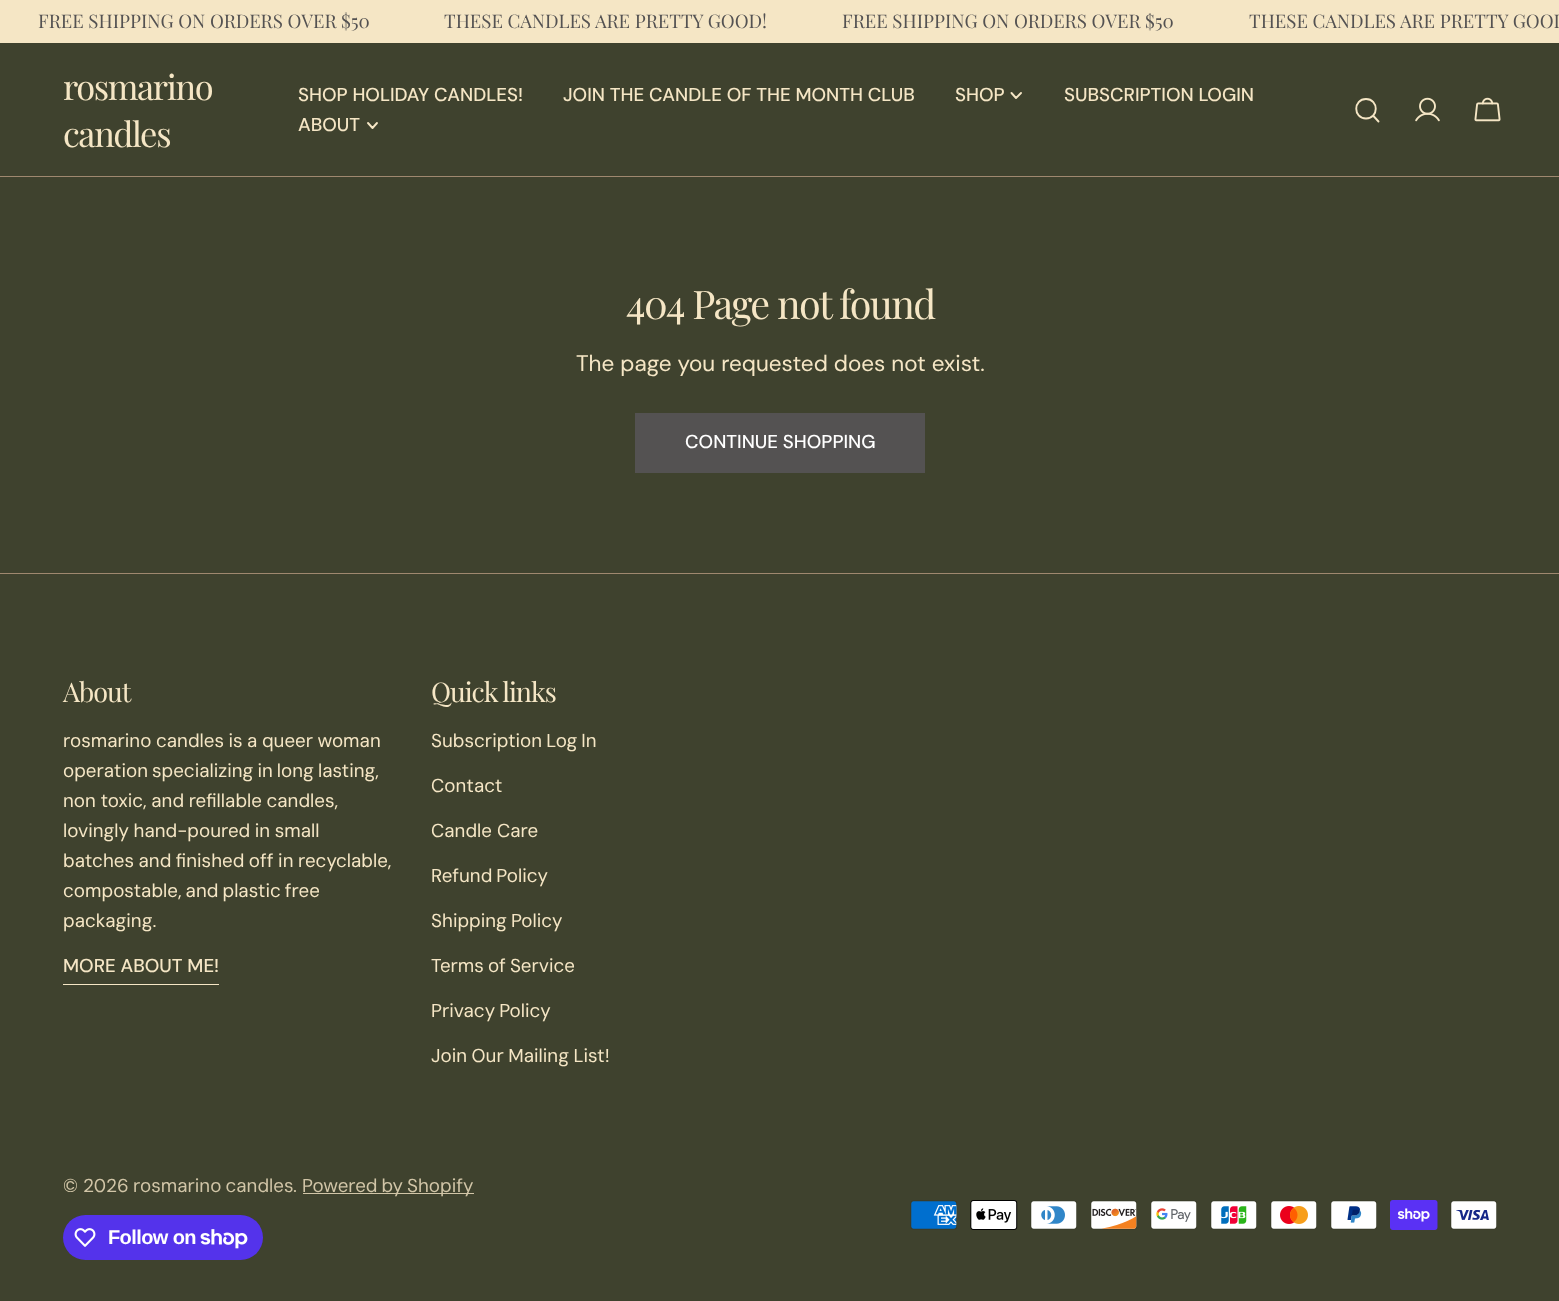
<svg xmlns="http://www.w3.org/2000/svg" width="1559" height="1301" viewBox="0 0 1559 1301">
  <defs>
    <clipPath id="clip1"><rect x="0" y="13" width="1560" height="18"/></clipPath>
  </defs>
  <rect width="100%" height="100%" fill="#3f422e"/>
  <rect x="0" y="0" width="1559" height="43" fill="#f5e6c5"/>
  <text x="38" y="28" font-family="Playfair Display" font-size="18.75" fill="#545252">FREE SHIPPING ON ORDERS OVER $50</text>
  <text x="444" y="28" font-family="Playfair Display" font-size="18.75" fill="#545252">THESE CANDLES ARE PRETTY GOOD!</text>
  <g clip-path="url(#clip1)">
    <text x="842" y="28" font-family="Playfair Display" font-size="18.75" fill="#545252">FREE SHIPPING ON ORDERS OVER $50</text>
  </g>
  <text x="1249" y="28" font-family="Playfair Display" font-size="18.75" fill="#545252">THESE CANDLES ARE PRETTY GOOD</text>
  <rect x="0" y="176" width="1559" height="1" fill="#9f886f"/>
  <text x="63" y="100" font-family="Playfair Display" font-size="34.5" letter-spacing="-1.4" fill="#f5e6c5">rosmarino</text>
  <text x="63" y="147" font-family="Playfair Display" font-size="34.5" letter-spacing="-1.4" fill="#f5e6c5">candles</text>
  <text x="298" y="101" font-family="DM Sans" font-size="18.75" font-weight="500" fill="#f5e6c5">SHOP HOLIDAY CANDLES!</text>
  <text x="563" y="101" font-family="DM Sans" font-size="18.75" font-weight="500" fill="#f5e6c5">JOIN THE CANDLE OF THE MONTH CLUB</text>
  <text x="955" y="101" font-family="DM Sans" font-size="18.75" font-weight="500" fill="#f5e6c5">SHOP</text>
  <path d="M1021 93L1016 98L1011.5 93" fill="none" stroke="#f5e6c5" stroke-width="1.9" stroke-linecap="round" stroke-linejoin="round"/>
  <text x="1064" y="101" font-family="DM Sans" font-size="18.75" font-weight="500" fill="#f5e6c5">SUBSCRIPTION LOGIN</text>
  <text x="298" y="131" font-family="DM Sans" font-size="18.75" font-weight="500" fill="#f5e6c5">ABOUT</text>
  <path d="M377 123L372.5 128L368 123" fill="none" stroke="#f5e6c5" stroke-width="1.9" stroke-linecap="round" stroke-linejoin="round"/>
  <path d="M1366 118.5C1379 118.5 1379 99 1366 99C1353 99 1353 118.5 1366 118.5ZM1373 115.5L1378.5 121.5" fill="none" stroke="#f5e6c5" stroke-width="1.9" stroke-linecap="round" stroke-linejoin="round"/>
  <image x="1415" y="97" width="25" height="25" href="img1.png"/>
  <image x="1474" y="97" width="27" height="25" href="img2.png"/>
  <text x="626" y="319" font-family="Playfair Display" font-size="39.5" letter-spacing="-1.6" fill="#f5e6c5">404 Page not found</text>
  <text x="576" y="371" font-family="DM Sans" font-size="22.5" fill="#f5e6c5">The page you requested does not exist.</text>
  <rect x="635" y="413" width="290" height="60" fill="#545252"/>
  <text x="685" y="448" font-family="DM Sans" font-size="18.75" font-weight="500" fill="#ffffff">CONTINUE SHOPPING</text>
  <rect x="0" y="573" width="1559" height="1" fill="#9f886f"/>
  <text x="63" y="702" font-family="Playfair Display" font-size="27" letter-spacing="-1" fill="#f5e6c5">About</text>
  <text x="63" y="747" word-spacing="-0.5" font-family="'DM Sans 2'" font-size="18.75" fill="#f5e6c5">rosmarino candles is a queer woman</text>
  <text x="63" y="777" word-spacing="-1" font-family="'DM Sans 2'" font-size="18.75" fill="#f5e6c5">operation specializing in long lasting,</text>
  <text x="63" y="807" word-spacing="-0.5" font-family="'DM Sans 2'" font-size="18.75" fill="#f5e6c5">non toxic, and refillable candles,</text>
  <text x="63" y="837" word-spacing="-0.5" font-family="'DM Sans 2'" font-size="18.75" fill="#f5e6c5">lovingly hand-poured in small</text>
  <text x="63" y="867" word-spacing="-0.5" font-family="'DM Sans 2'" font-size="18.75" fill="#f5e6c5">batches and finished off in recyclable,</text>
  <text x="63" y="897" word-spacing="-1" font-family="'DM Sans 2'" font-size="18.75" fill="#f5e6c5">compostable, and plastic free</text>
  <text x="63" y="927" font-family="'DM Sans 2'" font-size="18.75" fill="#f5e6c5">packaging.</text>
  <text x="63" y="972" font-family="DM Sans" font-size="18.75" font-weight="500" fill="#f5e6c5">MORE ABOUT ME!</text>
  <rect x="63" y="984" width="156" height="1" fill="#f5e6c5"/>
  <text x="431" y="702" font-family="Playfair Display" font-size="27" letter-spacing="-1" fill="#f5e6c5">Quick links</text>
  <text x="431" y="747" word-spacing="-1" font-family="'DM Sans 2'" font-size="18.75" fill="#f5e6c5">Subscription Log In</text>
  <text x="431" y="792" font-family="'DM Sans 2'" font-size="18.75" fill="#f5e6c5">Contact</text>
  <text x="431" y="837" font-family="'DM Sans 2'" font-size="18.75" fill="#f5e6c5">Candle Care</text>
  <text x="431" y="882" word-spacing="-1" font-family="'DM Sans 2'" font-size="18.75" fill="#f5e6c5">Refund Policy</text>
  <text x="431" y="927" word-spacing="-1" font-family="'DM Sans 2'" font-size="18.75" fill="#f5e6c5">Shipping Policy</text>
  <text x="431" y="972" word-spacing="-1" font-family="'DM Sans 2'" font-size="18.75" fill="#f5e6c5">Terms of Service</text>
  <text x="431" y="1017" word-spacing="-1" font-family="'DM Sans 2'" font-size="18.75" fill="#f5e6c5">Privacy Policy</text>
  <text x="431" y="1062" word-spacing="-0.5" font-family="'DM Sans 2'" font-size="18.75" fill="#f5e6c5">Join Our Mailing List!</text>
  <text x="63" y="1192" font-family="'DM Sans 2'" font-size="18.75" fill="#d1c5a7">© 2026</text>
  <text x="133" y="1192" word-spacing="-1" font-family="'DM Sans 2'" font-size="18.75" fill="#d1c5a7">rosmarino candles</text>
  <text x="293" y="1192" font-family="'DM Sans 2'" font-size="18.75" fill="#d1c5a7">.</text>
  <rect x="303" y="1193" width="171" height="1" fill="#d1c5a7"/>
  <text x="302" y="1192" word-spacing="-1" font-family="'DM Sans 2'" font-size="18.75" fill="#d1c5a7">Powered by Shopify</text>
  <rect x="63" y="1215" width="200" height="45" rx="22.5" fill="#5433eb"/>
  <image x="74" y="1228" width="22" height="19" href="img3.png"/>
  <text x="108" y="1244" font-family="Liberation Sans" font-size="20" font-weight="bold" letter-spacing="-0.6" fill="#ffffff">Follow on</text>
  <image x="200" y="1229" width="48" height="20" href="img4.png"/>
  <image x="910" y="1200" width="47" height="30" href="img5.png"/>
  <image x="970" y="1200" width="48" height="30" href="img6.png"/>
  <image x="1030" y="1200" width="47" height="30" href="img7.png"/>
  <image x="1090" y="1200" width="47" height="30" href="img8.png"/>
  <image x="1150" y="1200" width="47" height="30" href="img9.png"/>
  <image x="1210" y="1200" width="47" height="30" href="img10.png"/>
  <image x="1270" y="1200" width="47" height="30" href="img11.png"/>
  <image x="1330" y="1200" width="47" height="30" href="img12.png"/>
  <image x="1390" y="1200" width="48" height="30" href="img13.png"/>
  <image x="1450" y="1200" width="47" height="30" href="img14.png"/>
</svg>
